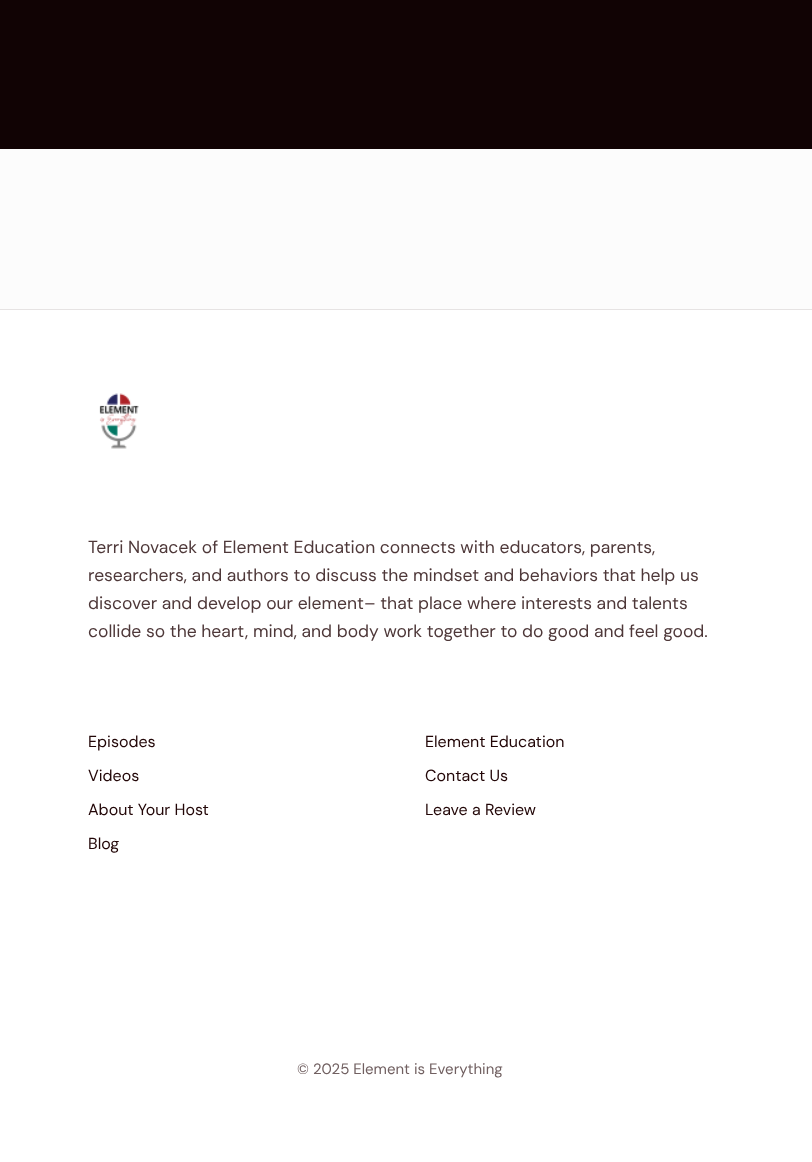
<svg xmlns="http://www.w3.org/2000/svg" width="812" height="1162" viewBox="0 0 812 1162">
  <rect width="100%" height="100%" fill="#ffffff"/>
  <rect x="0" y="149" width="812" height="160" fill="#fcfcfc"/>
  <rect x="0" y="0" width="812" height="149" fill="#110304"/>
  <rect x="0" y="309" width="812" height="1" fill="#e6e3e3"/>
  <image x="99" y="393" width="40" height="56" href="img1.png"/>
  <text x="88" y="553" font-family="DM Sans" font-size="17.5" fill="#4e3839">Terri Novacek of Element Education connects with educators, parents,</text>
  <text x="88" y="581" font-family="DM Sans" font-size="17.5" fill="#4e3839">researchers, and authors to discuss the mindset and behaviors that help us</text>
  <text x="88" y="609" font-family="DM Sans" font-size="17.5" fill="#4e3839">discover and develop our element– that place where interests and talents</text>
  <text x="88" y="637" font-family="DM Sans" font-size="17.5" fill="#4e3839">collide so the heart, mind, and body work together to do good and feel good.</text>
  <text x="88" y="747" font-family="DM Sans" font-size="16" fill="#220607">Episodes</text>
  <text x="88" y="781" font-family="DM Sans" font-size="16" fill="#220607">Videos</text>
  <text x="88" y="815" font-family="DM Sans" font-size="16" fill="#220607">About Your Host</text>
  <text x="88" y="849" font-family="DM Sans" font-size="16" fill="#220607">Blog</text>
  <text x="425" y="747" font-family="DM Sans" font-size="16" fill="#220607">Element Education</text>
  <text x="425" y="781" font-family="DM Sans" font-size="16" fill="#220607">Contact Us</text>
  <text x="425" y="815" font-family="DM Sans" font-size="16" fill="#220607">Leave a Review</text>
  <text x="297" y="1074" font-family="DM Sans" font-size="15" fill="#716061">© 2025 Element is Everything</text>
</svg>
